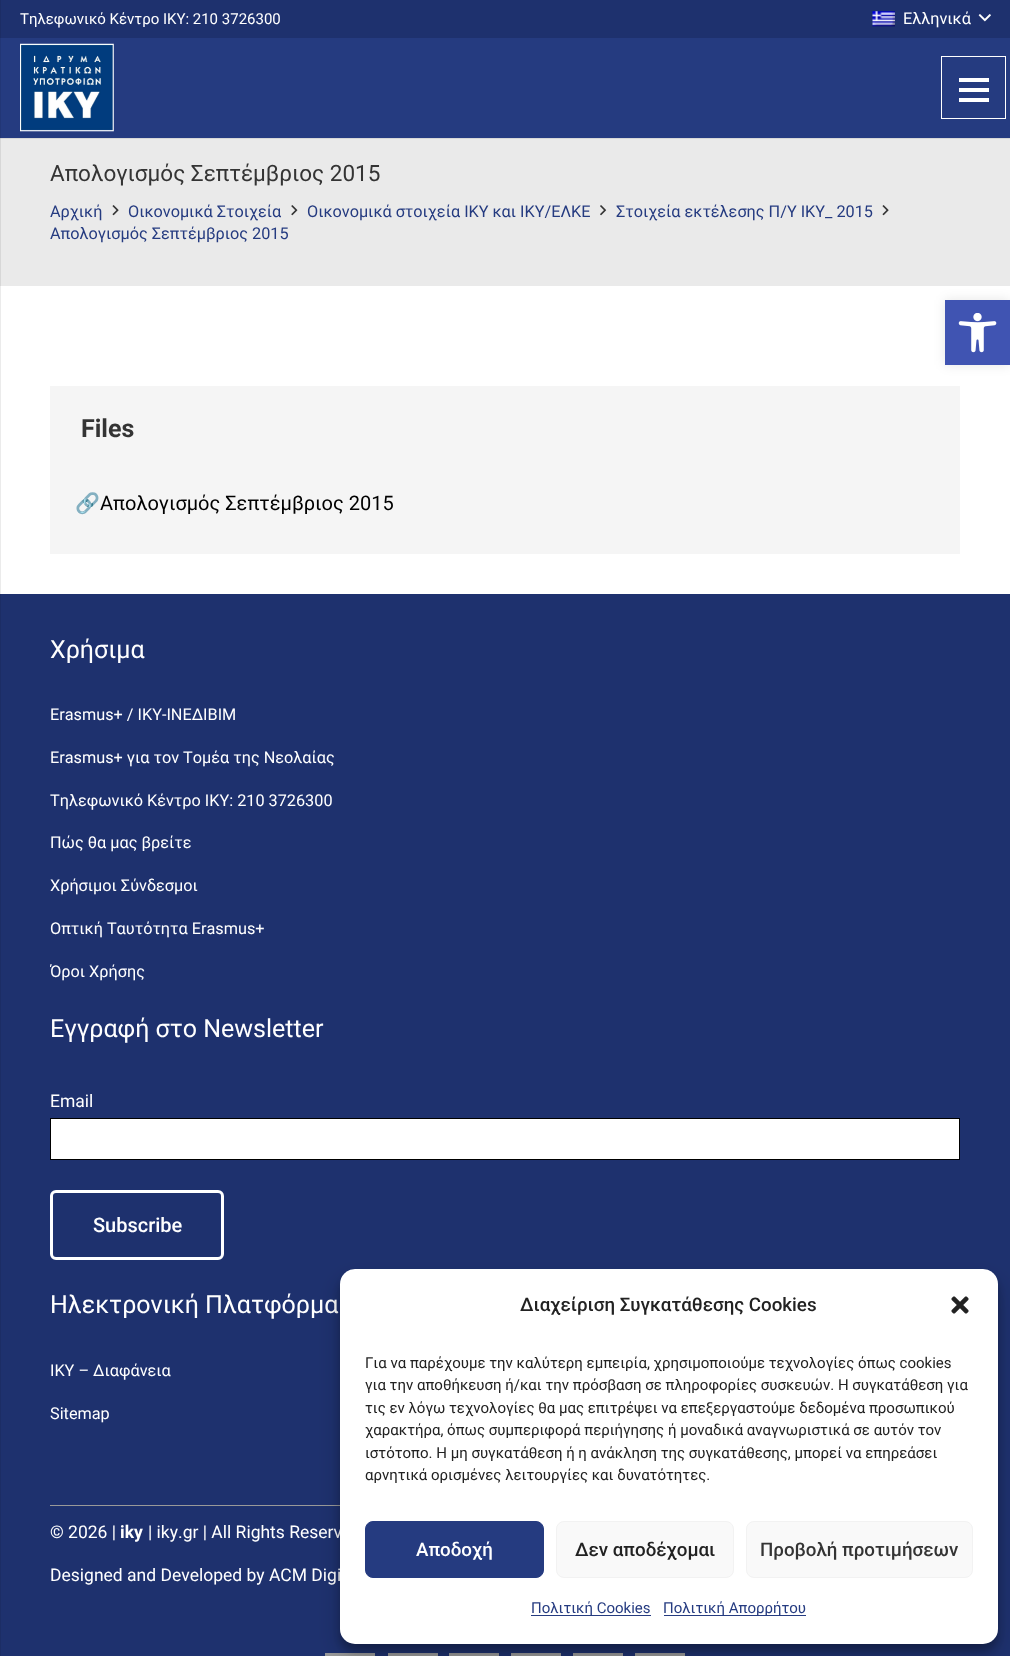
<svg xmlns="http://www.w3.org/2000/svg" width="1010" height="1656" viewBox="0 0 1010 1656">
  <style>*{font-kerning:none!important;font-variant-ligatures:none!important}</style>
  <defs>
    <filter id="blur1" x="-50%" y="-200%" width="200%" height="500%"><feGaussianBlur stdDeviation="6"/></filter>
    <filter id="blur2" x="-50%" y="-200%" width="200%" height="500%"><feGaussianBlur stdDeviation="4"/></filter>
    <filter id="blur3" x="-50%" y="-200%" width="200%" height="500%"><feGaussianBlur stdDeviation="12.5"/></filter>
  </defs>
  <rect width="100%" height="100%" fill="#ffffff"/>
  <rect x="0" y="286" width="1" height="308" fill="#ebebeb"/>
  <rect x="1" y="0" width="1009" height="38" fill="#1e316e"/>
  <rect x="0" y="0" width="1" height="38" fill="#1c2d65"/>
  <text x="20" y="24" font-family="Roboto" font-size="15" fill="#ffffff">Τηλεφωνικό Κέντρο IKY: 210 3726300</text>
  <image x="872" y="11" width="23" height="16" href="img1.png"/>
  <text x="903" y="24" font-family="Roboto" font-size="16.25" fill="#ffffff">Ελληνικά</text>
  <image x="978" y="14" width="13" height="8" href="img2.png"/>
  <rect x="0" y="138" width="1010" height="1" fill="#d7d7d7"/>
  <rect x="0" y="138" width="1" height="1" fill="#c6c6c6"/>
  <rect x="1" y="38" width="1009" height="100" fill="#253b80"/>
  <rect x="0" y="38" width="1" height="100" fill="#223676"/>
  <image x="20" y="43" width="94" height="89" href="img3.png"/>
  <rect x="941.5" y="56.5" width="64" height="62" fill="none" stroke="#ffffff"/>
  <rect x="959" y="88" width="30" height="4" fill="#ffffff"/>
  <rect x="959" y="78" width="30" height="4" fill="#ffffff"/>
  <rect x="959" y="98" width="30" height="4" fill="#ffffff"/>
  <rect x="1" y="139" width="1009" height="147" fill="#eaeaea"/>
  <rect x="0" y="139" width="1" height="147" fill="#d7d7d7"/>
  <text x="50" y="181" font-family="Roboto" font-size="22.5" fill="#343434">Απολογισμός Σεπτέμβριος 2015</text>
  <text x="50" y="217" font-family="Roboto" font-size="16.25" fill="#253b80">Αρχική</text>
  <image x="112" y="205" width="7" height="11" href="img4.png"/>
  <text x="128" y="217" font-family="Roboto" font-size="16.25" fill="#253b80">Οικονομικά Στοιχεία</text>
  <image x="291" y="205" width="7" height="11" href="img5.png"/>
  <text x="307" y="217" font-family="Roboto" font-size="16.25" fill="#253b80">Οικονομικά στοιχεία ΙΚΥ και ΙΚΥ/ΕΛΚΕ</text>
  <image x="600" y="205" width="7" height="11" href="img6.png"/>
  <text x="616" y="217" font-family="Roboto" font-size="16.25" fill="#253b80">Στοιχεία εκτέλεσης Π/Υ ΙΚΥ_ 2015</text>
  <image x="882" y="205" width="7" height="11" href="img4.png"/>
  <text x="50" y="239" font-family="Roboto" font-size="16.25" fill="#253b80">Απολογισμός Σεπτέμβριος 2015</text>
  <rect x="50" y="386" width="910" height="168" fill="#f5f5f5"/>
  <text x="81" y="437" font-family="Roboto" font-size="25" font-weight="bold" fill="#343434">Files</text>
  <text x="75" y="510" font-family="Noto Color Emoji" font-size="20" fill="#000000">🔗</text>
  <text x="100" y="510" font-family="Roboto" font-size="20" fill="#000000">Απολογισμός Σεπτέμβριος 2015</text>
  <rect x="945" y="300" width="65" height="65" fill="#000000" fill-opacity="0.1" filter="url(#blur1)"/>
  <rect x="945" y="300" width="65" height="65" fill="#4054b2"/>
  <image x="958" y="313" width="39" height="40" href="img7.png"/>
  <rect x="1" y="594" width="1009" height="1062" fill="#1e316e"/>
  <rect x="0" y="594" width="1" height="1062" fill="#1c2d65"/>
  <text x="50" y="658" font-family="Roboto" font-size="25" fill="#ffffff">Χρήσιμα</text>
  <text x="50" y="720" font-family="Roboto" font-size="16.25" fill="#ffffff">Erasmus+ / ΙΚΥ-ΙΝΕΔΙΒΙΜ</text>
  <text x="50" y="763" font-family="Roboto" font-size="16.25" fill="#ffffff">Erasmus+ για τον Τομέα της Νεολαίας</text>
  <text x="50" y="806" font-family="Roboto" font-size="16.25" fill="#ffffff">Τηλεφωνικό Κέντρο IKY: 210 3726300</text>
  <text x="50" y="848" font-family="Roboto" font-size="16.25" fill="#ffffff">Πώς θα μας βρείτε</text>
  <text x="50" y="891" font-family="Roboto" font-size="16.25" fill="#ffffff">Χρήσιμοι Σύνδεσμοι</text>
  <text x="50" y="934" font-family="Roboto" font-size="16.25" fill="#ffffff">Οπτική Ταυτότητα Erasmus+</text>
  <text x="50" y="977" font-family="Roboto" font-size="16.25" fill="#ffffff">Όροι Χρήσης</text>
  <text x="50" y="1037" font-family="Roboto" font-size="25" fill="#ffffff">Εγγραφή στο Newsletter</text>
  <text x="50" y="1107" font-family="Roboto" font-size="17.5" fill="#ffffff">Email</text>
  <rect x="50.5" y="1118.5" width="909" height="41" fill="#ffffff" stroke="#000000"/>
  <rect x="51.5" y="1191.5" width="171" height="67" rx="4.5" fill="none" stroke="#ffffff" stroke-width="3"/>
  <text x="93" y="1232" font-family="Roboto" font-size="20" font-weight="500" fill="#ffffff">Subscribe</text>
  <text x="50" y="1313" font-family="Roboto" font-size="25" fill="#ffffff">Ηλεκτρονική Πλατφόρμα</text>
  <text x="50" y="1376" font-family="Roboto" font-size="16.25" fill="#ffffff">ΙΚΥ – Διαφάνεια</text>
  <text x="50" y="1419" font-family="Roboto" font-size="16.25" fill="#ffffff">Sitemap</text>
  <rect x="50" y="1505" width="290" height="1" fill="#999999"/>
  <text x="50" y="1538" font-family="Roboto" font-size="17.5" fill="#ffffff">© 2026 |</text>
  <text x="120" y="1538" font-family="Roboto" font-size="17.5" font-weight="bold" fill="#ffffff">iky</text>
  <text x="148" y="1538" font-family="Roboto" font-size="17.5" fill="#ffffff">| iky.gr | All Rights Reserv</text>
  <text x="50" y="1581" font-family="Roboto" font-size="17.5" fill="#ffffff">Designed and Developed by ACM Digi</text>
  <rect x="325" y="1653" width="50" height="3" fill="#999999"/>
  <rect x="388" y="1653" width="50" height="3" fill="#999999"/>
  <rect x="449" y="1653" width="50" height="3" fill="#999999"/>
  <rect x="511" y="1653" width="50" height="3" fill="#999999"/>
  <rect x="573" y="1653" width="50" height="3" fill="#999999"/>
  <rect x="635" y="1653" width="50" height="3" fill="#999999"/>
  <rect x="340" y="1276" width="658" height="375" rx="15" fill="#000000" fill-opacity="0.23" filter="url(#blur2)"/>
  <rect x="340" y="1281" width="658" height="375" rx="15" fill="#000000" fill-opacity="0.19" filter="url(#blur3)"/>
  <rect x="340" y="1269" width="658" height="375" rx="15" fill="#ffffff"/>
  <text x="520" y="1311" font-family="Roboto" font-size="18.75" font-weight="500" fill="#222222">Διαχείριση Συγκατάθεσης Cookies</text>
  <image x="951" y="1296" width="18" height="18" href="img8.png"/>
  <text x="365" y="1368" font-family="Roboto" font-size="15" fill="#222222">Για να παρέχουμε την καλύτερη εμπειρία, χρησιμοποιούμε τεχνολογίες όπως cookies</text>
  <text x="365" y="1390" font-family="Roboto" font-size="15" fill="#222222">για την αποθήκευση ή/και την πρόσβαση σε πληροφορίες συσκευών. Η συγκατάθεση για</text>
  <text x="365" y="1413" font-family="Roboto" font-size="15" fill="#222222">τις εν λόγω τεχνολογίες θα μας επιτρέψει να επεξεργαστούμε δεδομένα προσωπικού</text>
  <text x="365" y="1435" font-family="Roboto" font-size="15" fill="#222222">χαρακτήρα, όπως συμπεριφορά περιήγησης ή μοναδικά αναγνωριστικά σε αυτόν τον</text>
  <text x="365" y="1458" font-family="Roboto" font-size="15" fill="#222222">ιστότοπο. Η μη συγκατάθεση ή η ανάκληση της συγκατάθεσης, μπορεί να επηρεάσει</text>
  <text x="365" y="1480" font-family="Roboto" font-size="15" fill="#222222">αρνητικά ορισμένες λειτουργίες και δυνατότητες.</text>
  <rect x="365.5" y="1521.5" width="178" height="56" rx="7.5" fill="#253b80" stroke="#253b80"/>
  <text x="416" y="1556" font-family="Roboto" font-size="18.75" font-weight="500" fill="#ffffff">Αποδοχή</text>
  <rect x="556.5" y="1521.5" width="177" height="56" rx="7.5" fill="#f9f9f9" stroke="#f2f2f2"/>
  <text x="575" y="1556" font-family="Roboto" font-size="18.75" font-weight="500" fill="#222222">Δεν αποδέχομαι</text>
  <rect x="746.5" y="1521.5" width="226" height="56" rx="7.5" fill="#f9f9f9" stroke="#f2f2f2"/>
  <text x="760" y="1556" font-family="Roboto" font-size="18.75" font-weight="500" fill="#343434">Προβολή προτιμήσεων</text>
  <rect x="531" y="1615" width="120" height="1" fill="#253b80"/>
  <text x="531" y="1613" font-family="Roboto" font-size="15" fill="#253b80">Πολιτική Cookies</text>
  <rect x="664" y="1615" width="142" height="1" fill="#253b80"/>
  <text x="663" y="1613" font-family="Roboto" font-size="15" fill="#253b80">Πολιτική Απορρήτου</text>
</svg>
